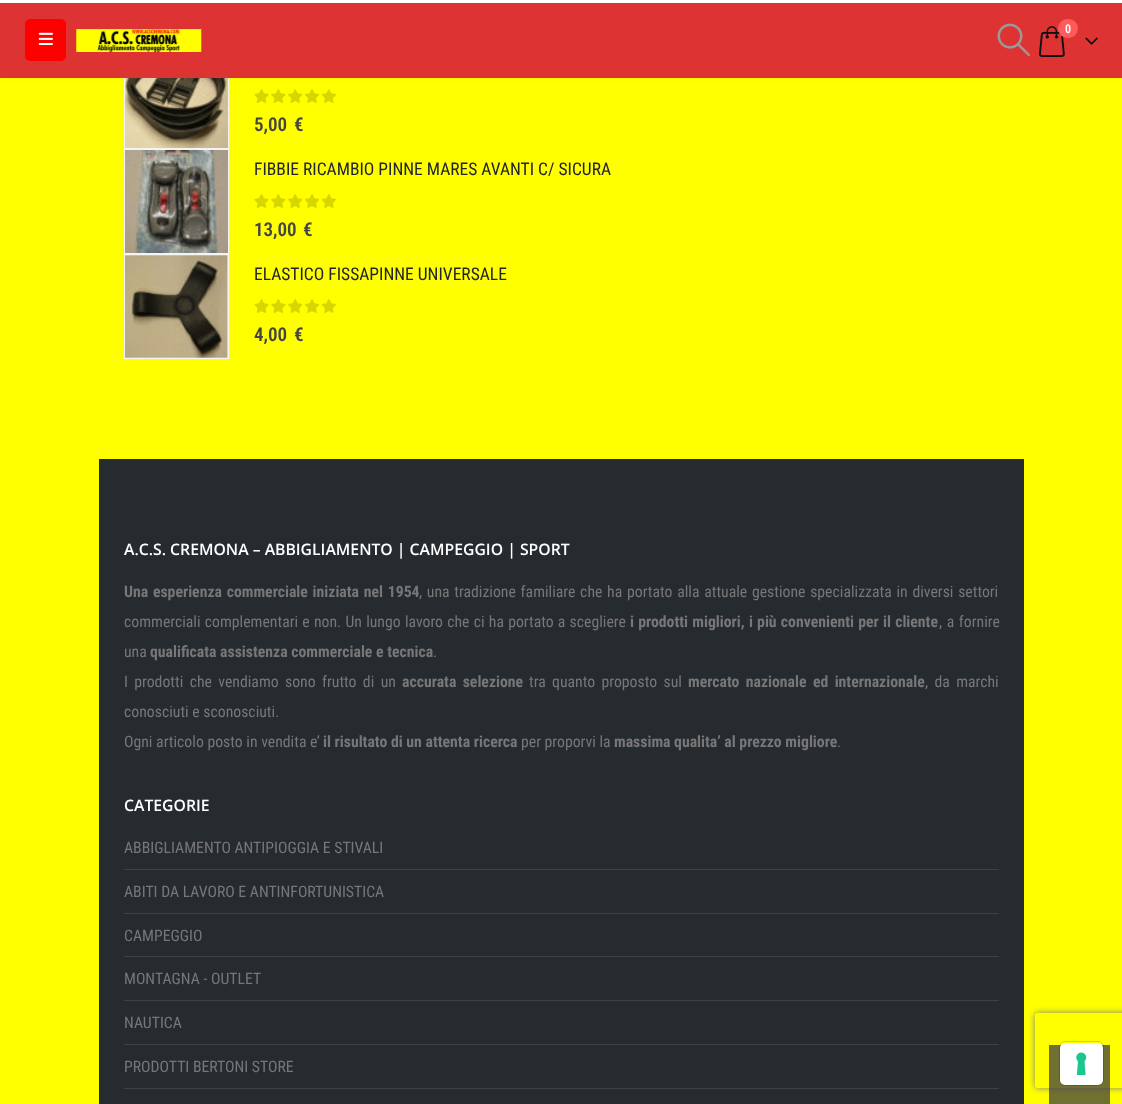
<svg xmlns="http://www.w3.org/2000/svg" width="1122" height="1104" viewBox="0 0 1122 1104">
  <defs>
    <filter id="blur1" x="-50%" y="-200%" width="200%" height="500%"><feGaussianBlur stdDeviation="2"/></filter>
    <clipPath id="clip1"><path d="M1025 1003H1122V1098H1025ZM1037.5 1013H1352.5C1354 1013 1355 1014 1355 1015.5V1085.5C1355 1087 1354 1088 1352.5 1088H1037.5C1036 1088 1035 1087 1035 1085.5V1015.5C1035 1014 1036 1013 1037.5 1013Z" clip-rule="evenodd"/></clipPath>
    <filter id="blur2" x="-50%" y="-200%" width="200%" height="500%"><feGaussianBlur stdDeviation="3"/></filter>
  </defs>
  <rect width="100%" height="100%" fill="#ffff00"/>
  <rect x="124.5" y="44.5" width="104" height="104" fill="none" stroke="#f4f4f4"/>
  <image x="125" y="78" width="103" height="70" href="img6.png"/>
  <rect x="0" y="0" width="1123" height="78" fill="#000000" fill-opacity="0.06" filter="url(#blur1)"/>
  <rect x="0" y="3" width="1122" height="75" fill="#dd3333"/>
  <rect x="0" y="0" width="1122" height="3" fill="#ffffff"/>
  <rect x="25" y="19" width="41" height="42" rx="5" fill="#ff0000"/>
  <image x="38" y="32" width="15" height="13" href="img1.png"/>
  <image x="76" y="29" width="126" height="23" href="img2.png"/>
  <image x="997" y="23" width="33" height="34" href="img3.png"/>
  <image x="1039" y="26" width="26" height="31" href="img4.png"/>
  <rect x="1058" y="19" width="20" height="19" rx="9.5" fill="#ff5b5b"/>
  <text x="1065" y="33" font-family="Roboto Condensed" font-size="12" font-weight="600" fill="#ffffff">0</text>
  <image x="1085" y="37" width="13" height="8" href="img5.png"/>
  <image x="254" y="89" width="82" height="14" href="img7.png"/>
  <text x="254" y="131" font-family="Roboto Condensed" font-size="19" font-weight="600" fill="#444444">5,00</text>
  <text x="294" y="131" font-family="Roboto Condensed" font-size="19" font-weight="600" fill="#444444">€</text>
  <rect x="124.5" y="149.5" width="104" height="104" fill="none" stroke="#f4f4f4"/>
  <image x="125" y="150" width="103" height="103" href="img8.png"/>
  <text x="254" y="175" font-family="Roboto Condensed" font-size="17.5" fill="#222529">FIBBIE RICAMBIO PINNE MARES AVANTI C/ SICURA</text>
  <image x="254" y="194" width="82" height="14" href="img7.png"/>
  <text x="254" y="236" font-family="Roboto Condensed" font-size="19" font-weight="600" fill="#444444">13,00</text>
  <text x="303" y="236" font-family="Roboto Condensed" font-size="19" font-weight="600" fill="#444444">€</text>
  <rect x="124.5" y="254.5" width="104" height="104" fill="#ffffff" stroke="#f4f4f4"/>
  <image x="125" y="255" width="103" height="103" href="img9.png"/>
  <text x="254" y="280" font-family="Roboto Condensed" font-size="17.5" fill="#222529">ELASTICO FISSAPINNE UNIVERSALE</text>
  <image x="254" y="299" width="82" height="14" href="img7.png"/>
  <text x="254" y="341" font-family="Roboto Condensed" font-size="19" font-weight="600" fill="#444444">4,00</text>
  <text x="294" y="341" font-family="Roboto Condensed" font-size="19" font-weight="600" fill="#444444">€</text>
  <rect x="99" y="459" width="925" height="645" fill="#262b30"/>
  <text x="124" y="555" font-family="Open Sans" font-size="15.75" font-weight="600" fill="#ffffff">A.C.S. CREMONA – ABBIGLIAMENTO | CAMPEGGIO | SPORT</text>
  <text x="124" y="597" word-spacing="1.1" font-family="Roboto Condensed" font-size="15.75" font-weight="bold" fill="#777777">Una esperienza commerciale iniziata nel 1954</text>
  <text x="419" y="597" word-spacing="1.1" font-family="Roboto Condensed" font-size="15.75" fill="#777777">, una tradizione familiare che ha portato alla attuale gestione specializzata in diversi settori</text>
  <text x="124" y="627" word-spacing="0.6" font-family="Roboto Condensed" font-size="15.75" fill="#777777">commerciali complementari e non. Un lungo lavoro che ci ha portato a scegliere</text>
  <text x="630" y="627" word-spacing="0.6" font-family="Roboto Condensed" font-size="15.75" font-weight="bold" fill="#777777">i prodotti migliori, i più convenienti per il cliente</text>
  <text x="939" y="627" word-spacing="1" font-family="Roboto Condensed" font-size="15.75" fill="#777777">, a fornire</text>
  <text x="124" y="657" font-family="Roboto Condensed" font-size="15.75" fill="#777777">una</text>
  <text x="150" y="657" font-family="Roboto Condensed" font-size="15.75" font-weight="bold" fill="#777777">qualificata assistenza commerciale e tecnica</text>
  <text x="433" y="657" font-family="Roboto Condensed" font-size="15.75" fill="#777777">.</text>
  <text x="124" y="687" word-spacing="2.75" font-family="Roboto Condensed" font-size="15.75" fill="#777777">I prodotti che vendiamo sono frutto di un</text>
  <text x="402" y="687" word-spacing="2.75" font-family="Roboto Condensed" font-size="15.75" font-weight="bold" fill="#777777">accurata selezione</text>
  <text x="529" y="687" word-spacing="2.75" font-family="Roboto Condensed" font-size="15.75" fill="#777777">tra quanto proposto sul</text>
  <text x="688" y="687" word-spacing="2.75" font-family="Roboto Condensed" font-size="15.75" font-weight="bold" fill="#777777">mercato nazionale ed internazionale</text>
  <text x="925" y="687" word-spacing="2.75" font-family="Roboto Condensed" font-size="15.75" fill="#777777">, da marchi</text>
  <text x="124" y="717" font-family="Roboto Condensed" font-size="15.75" fill="#777777">conosciuti e sconosciuti.</text>
  <text x="124" y="747" font-family="Roboto Condensed" font-size="15.75" fill="#777777">Ogni articolo posto in vendita e’</text>
  <text x="323" y="747" font-family="Roboto Condensed" font-size="15.75" font-weight="bold" fill="#777777">il risultato di un attenta ricerca</text>
  <text x="521" y="747" font-family="Roboto Condensed" font-size="15.75" fill="#777777">per proporvi la</text>
  <text x="614" y="747" font-family="Roboto Condensed" font-size="15.75" font-weight="bold" fill="#777777">massima qualita’ al prezzo migliore</text>
  <text x="837" y="747" font-family="Roboto Condensed" font-size="15.75" fill="#777777">.</text>
  <text x="124" y="811" font-family="Open Sans" font-size="15.75" font-weight="600" fill="#ffffff">CATEGORIE</text>
  <text x="124" y="853" font-family="Roboto Condensed" font-size="15.75" fill="#777777">ABBIGLIAMENTO ANTIPIOGGIA E STIVALI</text>
  <rect x="124" y="869" width="875" height="1" fill="#3e4245"/>
  <text x="124" y="897" font-family="Roboto Condensed" font-size="15.75" fill="#777777">ABITI DA LAVORO E ANTINFORTUNISTICA</text>
  <rect x="124" y="913" width="875" height="1" fill="#3e4245"/>
  <text x="124" y="941" font-family="Roboto Condensed" font-size="15.75" fill="#777777">CAMPEGGIO</text>
  <rect x="124" y="956" width="875" height="1" fill="#3e4245"/>
  <text x="124" y="984" font-family="Roboto Condensed" font-size="15.75" fill="#777777">MONTAGNA - OUTLET</text>
  <rect x="124" y="1000" width="875" height="1" fill="#3e4245"/>
  <text x="124" y="1028" font-family="Roboto Condensed" font-size="15.75" fill="#777777">NAUTICA</text>
  <rect x="124" y="1044" width="875" height="1" fill="#3e4245"/>
  <text x="124" y="1072" font-family="Roboto Condensed" font-size="15.75" fill="#777777">PRODOTTI BERTONI STORE</text>
  <rect x="124" y="1088" width="875" height="1" fill="#3e4245"/>
  <g clip-path="url(#clip1)">
    <rect x="1035" y="1013" width="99" height="75" rx="2.5" fill="#808080" filter="url(#blur2)"/>
  </g>
  <rect x="1049" y="1045" width="61" height="59" fill="#404040" fill-opacity="0.75"/>
  <rect x="1059.5" y="1041.5" width="44" height="44" rx="5.5" fill="none" stroke="#000000" stroke-opacity="0.15"/>
  <rect x="1060" y="1043" width="43" height="42" rx="5" fill="#ffffff"/>
  <image x="1076" y="1052" width="11" height="23" href="img10.png"/>
</svg>
